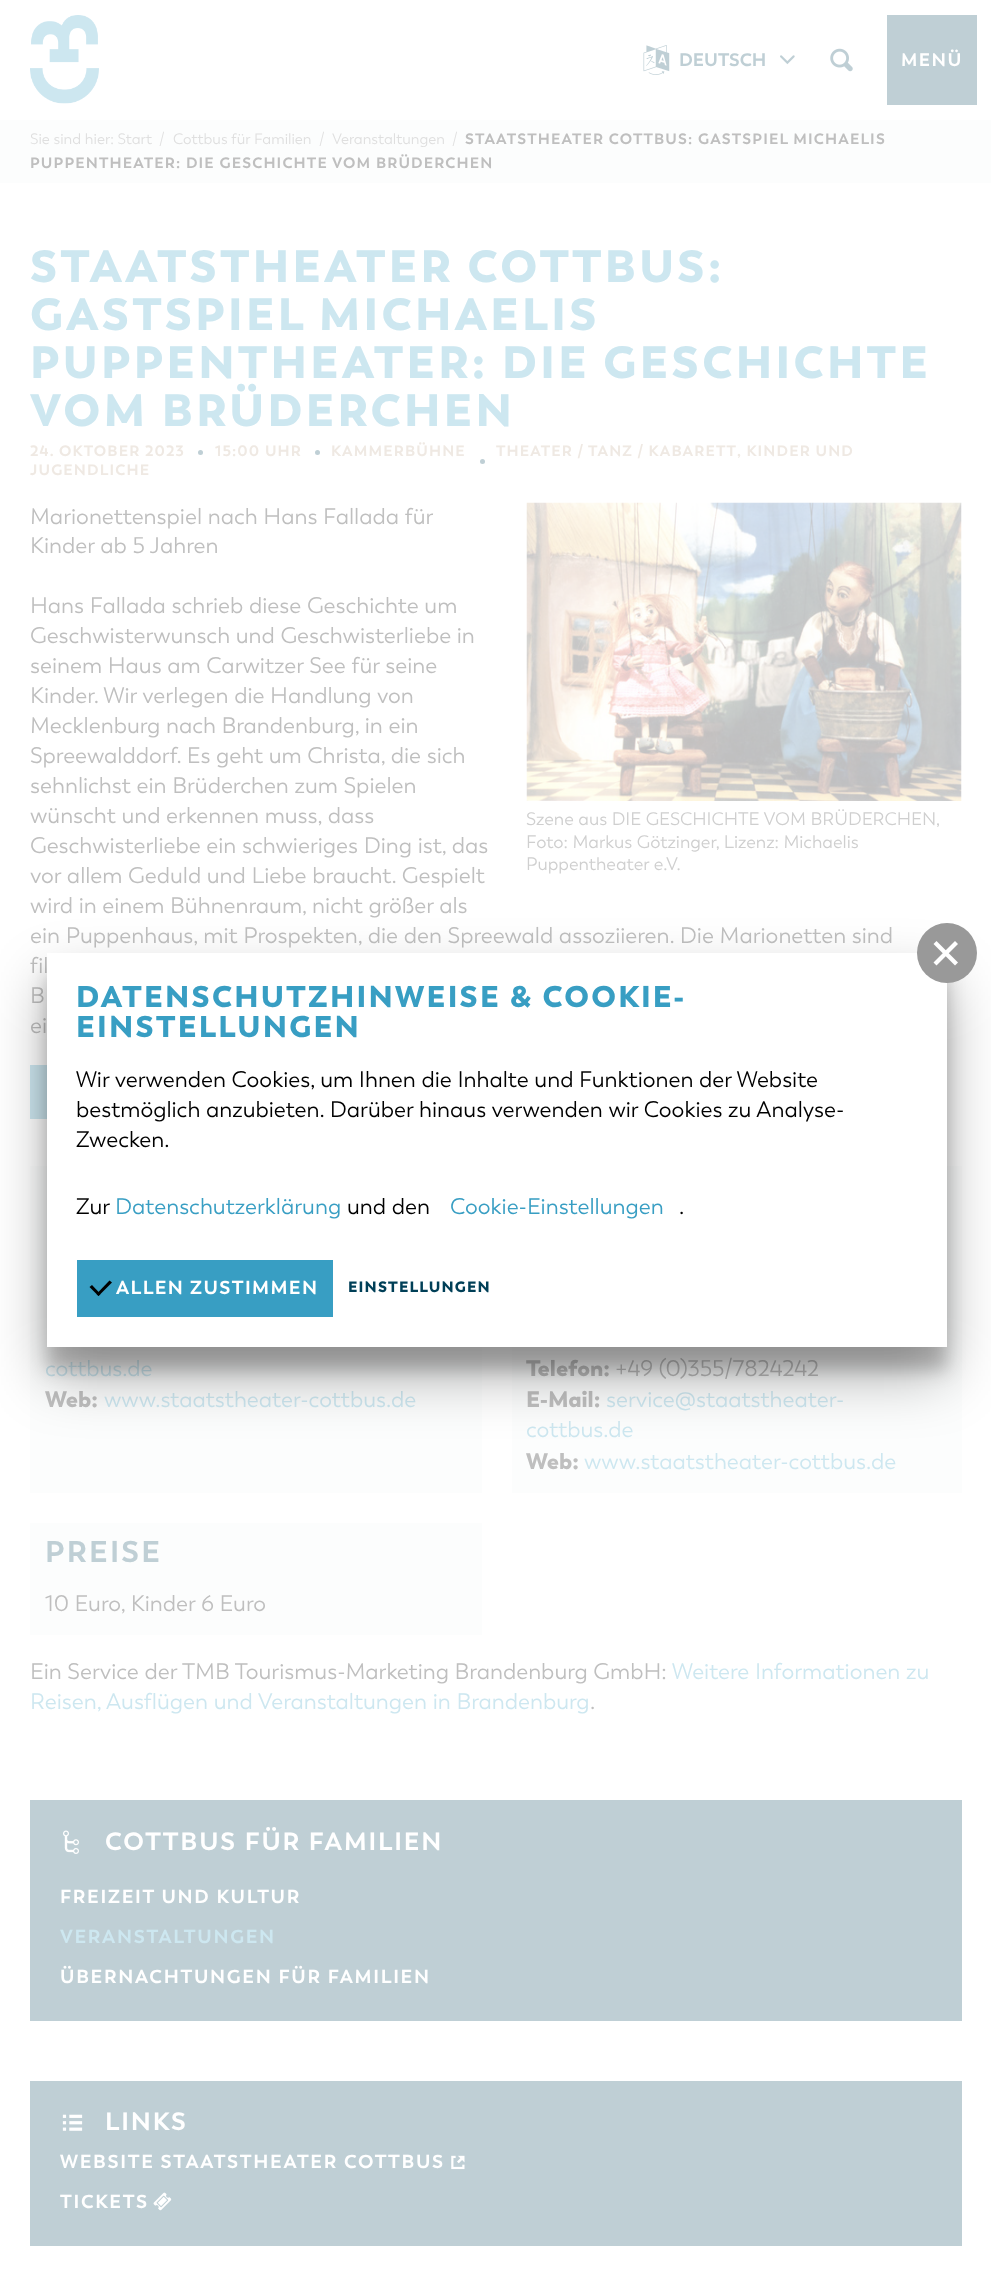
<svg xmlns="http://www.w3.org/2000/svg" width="991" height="2284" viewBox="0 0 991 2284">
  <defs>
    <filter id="blur1" x="-50%" y="-200%" width="200%" height="500%"><feGaussianBlur stdDeviation="9"/></filter>
    <filter id="blur2" x="-50%" y="-200%" width="200%" height="500%"><feGaussianBlur stdDeviation="28.5"/></filter>
  </defs>
  <rect width="100%" height="100%" fill="#ffffff"/>
  <image x="30" y="15" width="69" height="89" href="img1.png"/>
  <image x="643" y="45" width="27" height="30" href="img2.png"/>
  <text x="679" y="66" font-family="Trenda" font-size="18" font-weight="bold" fill="#bfcfd5">DEUTSCH</text>
  <image x="780" y="55" width="15" height="10" href="img3.png"/>
  <image x="830" y="48" width="23" height="24" href="img4.png"/>
  <rect x="887" y="15" width="90" height="90" fill="#bfcfd5"/>
  <text x="901" y="66" font-family="Trenda" font-size="18" font-weight="bold" letter-spacing="1.5" fill="#ffffff">MENÜ</text>
  <rect x="0" y="120" width="991" height="63" fill="#fcfdfd"/>
  <text x="30" y="144" font-family="Trenda" font-size="15" fill="#dfdfdf">Sie sind hier: Start</text>
  <text x="159" y="144" font-family="Trenda" font-size="15" fill="#dfdfdf">/</text>
  <text x="173" y="144" font-family="Trenda" font-size="15" fill="#dfdfdf">Cottbus für Familien</text>
  <text x="319" y="144" font-family="Trenda" font-size="15" fill="#dfdfdf">/</text>
  <text x="332" y="144" font-family="Trenda" font-size="15" fill="#dfdfdf">Veranstaltungen</text>
  <text x="452" y="144" font-family="Trenda" font-size="15" fill="#dfdfdf">/</text>
  <text x="465" y="144" font-family="Trenda" font-size="15" font-weight="bold" letter-spacing="1.15" fill="#bfbfbf">STAATSTHEATER COTTBUS: GASTSPIEL MICHAELIS</text>
  <text x="30" y="168" font-family="Trenda" font-size="15" font-weight="bold" letter-spacing="1.15" fill="#bfbfbf">PUPPENTHEATER: DIE GESCHICHTE VOM BRÜDERCHEN</text>
  <text x="30" y="282" font-family="Trenda" font-size="45" font-weight="900" letter-spacing="3.4" fill="#cde7f0">STAATSTHEATER COTTBUS:</text>
  <text x="30" y="330" font-family="Trenda" font-size="45" font-weight="900" letter-spacing="3.4" fill="#cde7f0">GASTSPIEL MICHAELIS</text>
  <text x="30" y="378" font-family="Trenda" font-size="45" font-weight="900" letter-spacing="3.4" fill="#cde7f0">PUPPENTHEATER: DIE GESCHICHTE</text>
  <text x="30" y="426" font-family="Trenda" font-size="45" font-weight="900" letter-spacing="3.4" fill="#cde7f0">VOM BRÜDERCHEN</text>
  <circle cx="317.5" cy="452.5" r="2.5" fill="#bfcfd5"/>
  <text x="331" y="456" font-family="Trenda" font-size="15" font-weight="bold" letter-spacing="1.15" fill="#efe9e3">KAMMERBÜHNE</text>
  <text x="496" y="456" word-spacing="-0.5" font-family="Trenda" font-size="15" font-weight="bold" letter-spacing="1.15" fill="#efe9e3">THEATER / TANZ / KABARETT</text>
  <text x="737" y="456" font-family="Trenda" font-size="15" font-weight="bold" letter-spacing="1.15" fill="#efe9e3">, KINDER UND</text>
  <circle cx="482.5" cy="461.5" r="2.5" fill="#bfcfd5"/>
  <text x="30" y="475" font-family="Trenda" font-size="15" font-weight="bold" letter-spacing="1.15" fill="#efe9e3">JUGENDLICHE</text>
  <text x="30" y="456" font-family="Trenda" font-size="15" font-weight="bold" letter-spacing="1.15" fill="#efe9e3">24. OKTOBER 2023</text>
  <circle cx="200.5" cy="452.5" r="2.5" fill="#bfcfd5"/>
  <text x="215" y="456" font-family="Trenda" font-size="15" font-weight="bold" letter-spacing="1.15" fill="#efe9e3">15:00 UHR</text>
  <text x="30" y="524" font-family="Trenda" font-size="22.5" fill="#bfbfbf">Marionettenspiel nach Hans Fallada für</text>
  <text x="30" y="553" font-family="Trenda" font-size="22.5" fill="#bfbfbf">Kinder ab 5 Jahren</text>
  <text x="30" y="613" font-family="Trenda" font-size="22.5" fill="#bfbfbf">Hans Fallada schrieb diese Geschichte um</text>
  <text x="30" y="643" font-family="Trenda" font-size="22.5" fill="#bfbfbf">Geschwisterwunsch und Geschwisterliebe in</text>
  <text x="30" y="673" font-family="Trenda" font-size="22.5" fill="#bfbfbf">seinem Haus am Carwitzer See für seine</text>
  <text x="30" y="703" font-family="Trenda" font-size="22.5" fill="#bfbfbf">Kinder. Wir verlegen die Handlung von</text>
  <text x="30" y="733" font-family="Trenda" font-size="22.5" fill="#bfbfbf">Mecklenburg nach Brandenburg, in ein</text>
  <text x="30" y="763" font-family="Trenda" font-size="22.5" fill="#bfbfbf">Spreewalddorf. Es geht um Christa, die sich</text>
  <text x="30" y="793" font-family="Trenda" font-size="22.5" fill="#bfbfbf">sehnlichst ein Brüderchen zum Spielen</text>
  <text x="30" y="823" font-family="Trenda" font-size="22.5" fill="#bfbfbf">wünscht und erkennen muss, dass</text>
  <text x="30" y="853" font-family="Trenda" font-size="22.5" fill="#bfbfbf">Geschwisterliebe ein schwieriges Ding ist, das</text>
  <text x="30" y="883" font-family="Trenda" font-size="22.5" fill="#bfbfbf">vor allem Geduld und Liebe braucht. Gespielt</text>
  <text x="30" y="913" font-family="Trenda" font-size="22.5" fill="#bfbfbf">wird in einem Bühnenraum, nicht größer als</text>
  <text x="30" y="943" font-family="Trenda" font-size="22.5" fill="#bfbfbf">ein Puppenhaus, mit Prospekten, die den Spreewald assoziieren. Die Marionetten sind</text>
  <text x="30" y="973" font-family="Trenda" font-size="22.5" fill="#bfbfbf">fil</text>
  <text x="30" y="1003" font-family="Trenda" font-size="22.5" fill="#bfbfbf">B</text>
  <text x="30" y="1033" font-family="Trenda" font-size="22.5" fill="#bfbfbf">ei</text>
  <image x="526" y="502" width="436" height="299" href="img5.png"/>
  <text x="526" y="825" font-family="Trenda" font-size="18" fill="#cfcfcf">Szene aus DIE GESCHICHTE VOM BRÜDERCHEN,</text>
  <text x="526" y="848" font-family="Trenda" font-size="18" fill="#cfcfcf">Foto: Markus Götzinger, Lizenz: Michaelis</text>
  <text x="526" y="870" font-family="Trenda" font-size="18" fill="#cfcfcf">Puppentheater e.V.</text>
  <rect x="30" y="1065" width="17" height="54" fill="#cde7f0"/>
  <rect x="30" y="1166" width="452" height="327" fill="#fcfdfd"/>
  <text x="45" y="1376" font-family="Trenda" font-size="22.5" fill="#cde7f0">cottbus.de</text>
  <text x="45" y="1407" font-family="Trenda" font-size="22.5" font-weight="900" fill="#bfbfbf">Web:</text>
  <text x="104" y="1407" font-family="Trenda" font-size="22.5" fill="#cde7f0">www.staatstheater-cottbus.de</text>
  <rect x="512" y="1166" width="450" height="327" fill="#fcfdfd"/>
  <text x="526" y="1376" font-family="Trenda" font-size="22.5" font-weight="900" fill="#bfbfbf">Telefon:</text>
  <text x="615" y="1376" font-family="Trenda" font-size="22.5" fill="#bfbfbf">+49 (0)355/7824242</text>
  <text x="526" y="1407" font-family="Trenda" font-size="22.5" font-weight="900" fill="#bfbfbf">E-Mail:</text>
  <text x="606" y="1407" font-family="Trenda" font-size="22.5" fill="#cde7f0">service@staatstheater-</text>
  <text x="526" y="1437" font-family="Trenda" font-size="22.5" fill="#cde7f0">cottbus.de</text>
  <text x="526" y="1469" font-family="Trenda" font-size="22.5" font-weight="900" fill="#bfbfbf">Web:</text>
  <text x="584" y="1469" font-family="Trenda" font-size="22.5" fill="#cde7f0">www.staatstheater-cottbus.de</text>
  <rect x="30" y="1523" width="452" height="112" fill="#fcfdfd"/>
  <text x="45" y="1562" font-family="Trenda" font-size="30" font-weight="bold" letter-spacing="2.25" fill="#bfcfd5">PREISE</text>
  <text x="45" y="1611" font-family="Trenda" font-size="22.5" fill="#bfbfbf">10 Euro, Kinder 6 Euro</text>
  <text x="30" y="1679" font-family="Trenda" font-size="22.5" fill="#bfbfbf">Ein Service der TMB Tourismus-Marketing Brandenburg GmbH:</text>
  <text x="672" y="1679" font-family="Trenda" font-size="22.5" fill="#cde7f0">Weitere Informationen zu</text>
  <text x="30" y="1709" font-family="Trenda" font-size="22.5" fill="#cde7f0">Reisen, Ausflügen und Veranstaltungen in Brandenburg</text>
  <text x="590" y="1709" font-family="Trenda" font-size="22.5" fill="#bfbfbf">.</text>
  <rect x="30" y="1800" width="932" height="221" fill="#bfcfd5"/>
  <image x="63" y="1830" width="16" height="24" href="img6.png"/>
  <text x="105" y="1850" font-family="Trenda" font-size="25" font-weight="bold" letter-spacing="1.9" fill="#ffffff">COTTBUS FÜR FAMILIEN</text>
  <text x="60" y="1903" font-family="Trenda" font-size="18.75" font-weight="bold" letter-spacing="1.7" fill="#ffffff">FREIZEIT UND KULTUR</text>
  <text x="60" y="1943" font-family="Trenda" font-size="18.75" font-weight="bold" letter-spacing="1.7" fill="#cde7f0">VERANSTALTUNGEN</text>
  <text x="60" y="1983" font-family="Trenda" font-size="18.75" font-weight="bold" letter-spacing="1.7" fill="#ffffff">ÜBERNACHTUNGEN FÜR FAMILIEN</text>
  <rect x="30" y="2081" width="932" height="165" fill="#bfcfd5"/>
  <image x="62" y="2114" width="21" height="17" href="img7.png"/>
  <text x="105" y="2130" font-family="Trenda" font-size="25" font-weight="bold" letter-spacing="1.9" fill="#ffffff">LINKS</text>
  <text x="60" y="2168" font-family="Trenda" font-size="18.75" font-weight="bold" letter-spacing="1.7" fill="#ffffff">WEBSITE STAATSTHEATER COTTBUS</text>
  <image x="451" y="2155" width="14" height="15" href="img8.png"/>
  <text x="60" y="2208" font-family="Trenda" font-size="18.75" font-weight="bold" letter-spacing="1.7" fill="#ffffff">TICKETS</text>
  <image x="153" y="2192" width="19" height="19" href="img9.png"/>
  <rect x="47" y="975" width="900" height="395" fill="#000000" fill-opacity="0.22" filter="url(#blur1)"/>
  <rect x="47" y="981" width="900" height="395" fill="#000000" fill-opacity="0.3" filter="url(#blur2)"/>
  <rect x="47" y="953" width="900" height="394" fill="#ffffff"/>
  <circle cx="947" cy="953" r="30" fill="#999999"/>
  <path d="M936.5 941L958 962.5L955 965.5L933.5 944Z" fill="#ffffff"/>
  <path d="M933.5 962.5L955 941L958 944L936.5 965.5Z" fill="#ffffff"/>
  <text x="76" y="1007" font-family="Trenda" font-size="30" font-weight="900" letter-spacing="2.25" fill="#389ec3">DATENSCHUTZHINWEISE &amp; COOKIE-</text>
  <text x="76" y="1037" font-family="Trenda" font-size="30" font-weight="900" letter-spacing="2.25" fill="#389ec3">EINSTELLUNGEN</text>
  <text x="76" y="1087" font-family="Trenda" font-size="22.5" fill="#000000">Wir verwenden Cookies, um Ihnen die Inhalte und Funktionen der Website</text>
  <text x="76" y="1117" font-family="Trenda" font-size="22.5" fill="#000000">bestmöglich anzubieten. Darüber hinaus verwenden wir Cookies zu Analyse-</text>
  <text x="76" y="1147" font-family="Trenda" font-size="22.5" fill="#000000">Zwecken.</text>
  <text x="76" y="1214" font-family="Trenda" font-size="22.5" fill="#000000">Zur</text>
  <text x="115" y="1214" font-family="Trenda" font-size="22.5" fill="#389ec3">Datenschutzerklärung</text>
  <text x="347" y="1214" font-family="Trenda" font-size="22.5" fill="#000000">und den</text>
  <text x="450" y="1214" font-family="Trenda" font-size="22.5" fill="#389ec3">Cookie-Einstellungen</text>
  <text x="679" y="1214" font-family="Trenda" font-size="22.5" fill="#000000">.</text>
  <rect x="77" y="1260" width="256" height="57" fill="#389ec3"/>
  <path d="M109.5 1280.5L112 1282.5L98.5 1296L96.5 1294Z" fill="#000000"/>
  <path d="M92 1285L100.5 1294L98.5 1296L89.5 1287Z" fill="#000000"/>
  <text x="116" y="1294" font-family="Trenda" font-size="18.75" font-weight="bold" letter-spacing="1.4" fill="#ffffff">ALLEN ZUSTIMMEN</text>
  <text x="348" y="1292" font-family="Trenda" font-size="15" font-weight="900" letter-spacing="1.15" fill="#003f57">EINSTELLUNGEN</text>
</svg>
